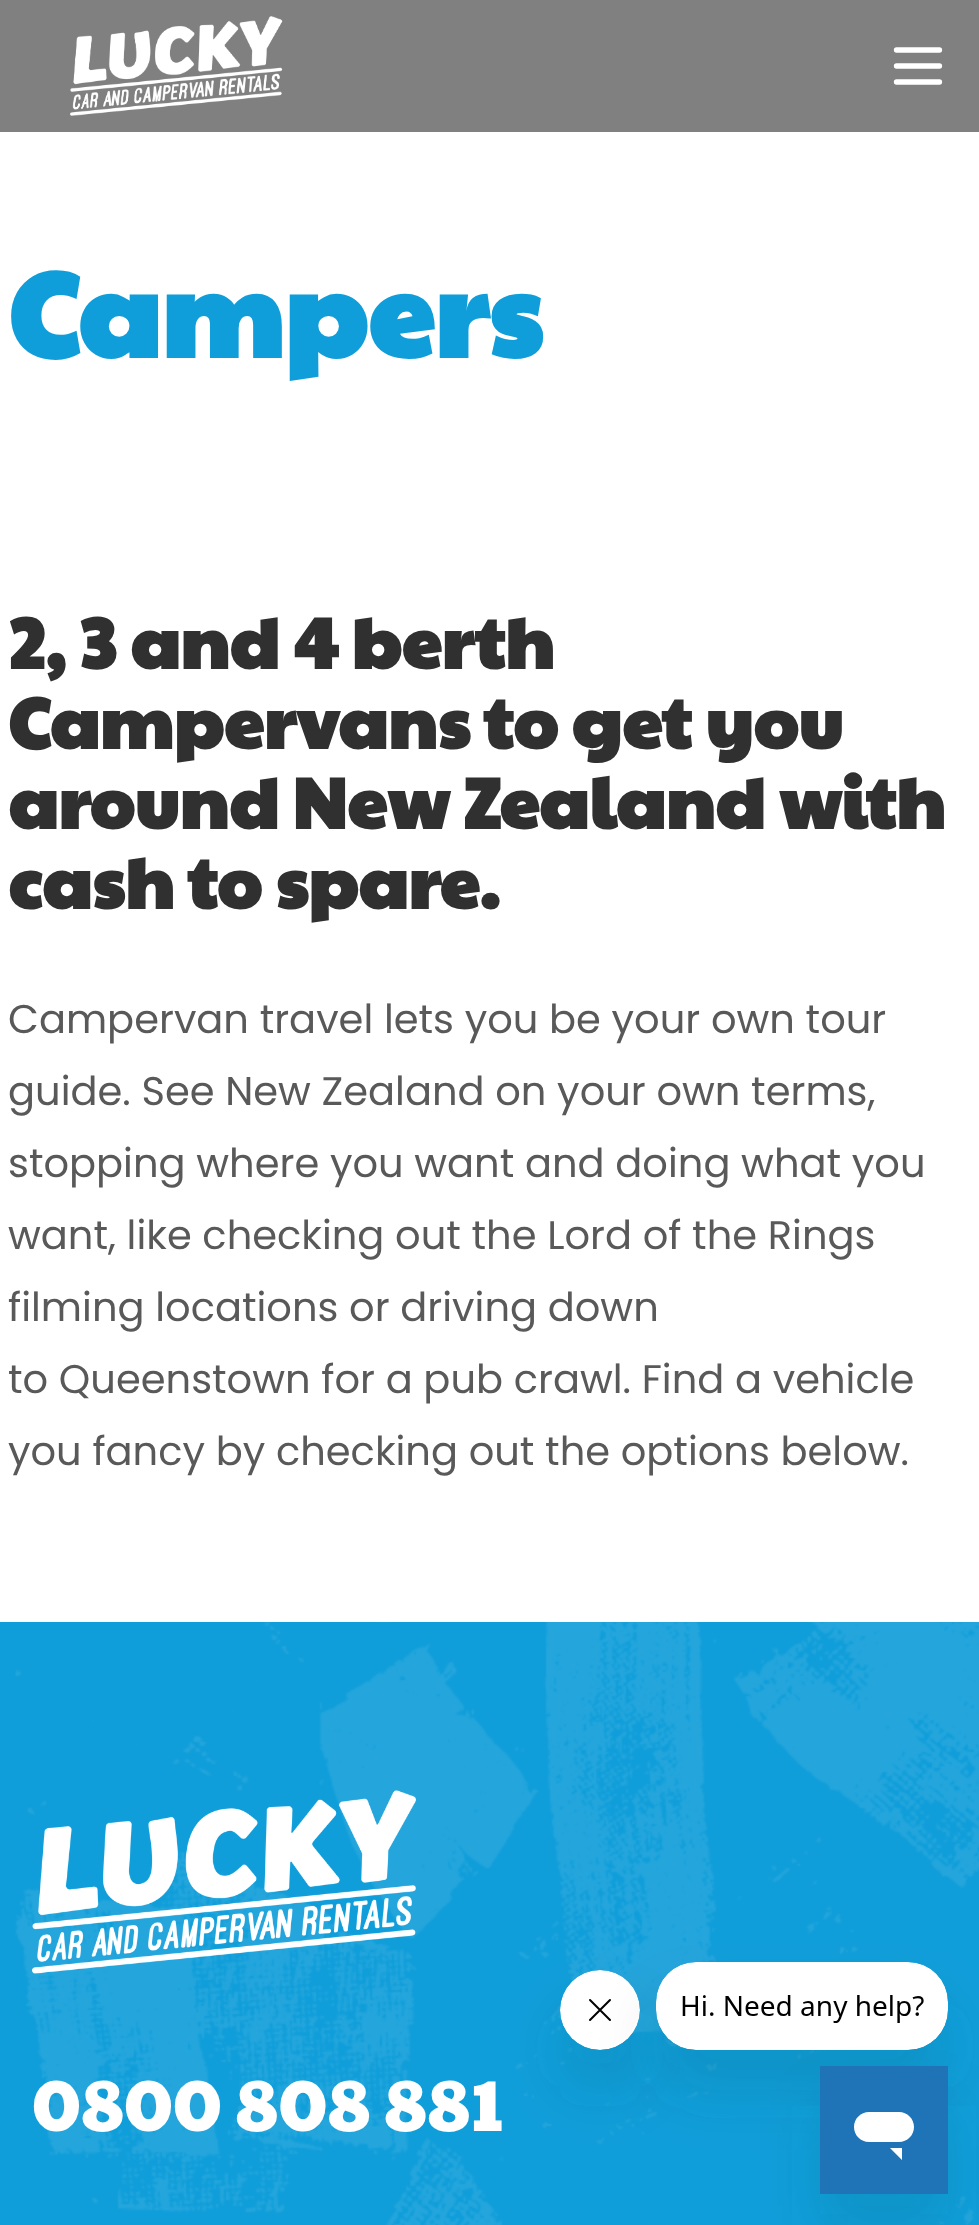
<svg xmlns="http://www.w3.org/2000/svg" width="979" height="2225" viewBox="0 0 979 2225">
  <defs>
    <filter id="blur1" x="-50%" y="-200%" width="200%" height="500%"><feGaussianBlur stdDeviation="30"/></filter>
  </defs>
  <rect width="100%" height="100%" fill="#ffffff"/>
  <rect x="0" y="0" width="979" height="132" fill="#808080"/>
  <image x="70" y="16" width="213" height="100" href="img1.png"/>
  <path d="M896.5 50H939.5M896.5 66H939.5M896.5 82H939.5" fill="none" stroke="#ffffff" stroke-width="5.3" stroke-linecap="round" stroke-linejoin="round"/>
  <text x="8" y="358" font-family="Paytone One" font-size="120" font-weight="bold" fill="#109eda">Campers</text>
  <text x="8" y="669" font-family="Paytone One" font-size="72" font-weight="bold" fill="#303030">2, 3 and 4 berth</text>
  <text x="8" y="749" font-family="Paytone One" font-size="72" font-weight="bold" fill="#303030">Campervans to get you</text>
  <text x="8" y="829" font-family="Paytone One" font-size="72" font-weight="bold" fill="#303030">around New Zealand with</text>
  <text x="8" y="909" font-family="Paytone One" font-size="72" font-weight="bold" fill="#303030">cash to spare.</text>
  <text x="8" y="1033" font-family="Poppins" font-size="40" fill="#595959">Campervan travel lets you be your own tour</text>
  <text x="8" y="1105" font-family="Poppins" font-size="40" fill="#595959">guide. See New Zealand on your own terms,</text>
  <text x="8" y="1177" font-family="Poppins" font-size="40" fill="#595959">stopping where you want and doing what you</text>
  <text x="8" y="1249" font-family="Poppins" font-size="40" fill="#595959">want, like checking out the Lord of the Rings</text>
  <text x="8" y="1321" font-family="Poppins" font-size="40" fill="#595959">filming locations or driving down</text>
  <text x="8" y="1393" font-family="Poppins" font-size="40" fill="#595959">to Queenstown for a pub crawl. Find a vehicle</text>
  <text x="8" y="1465" font-family="Poppins" font-size="40" fill="#595959">you fancy by checking out the options below.</text>
  <rect x="0" y="1622" width="979" height="603" fill="#109eda"/>
  <image x="15" y="1622" width="964" height="603" href="img2.png"/>
  <image x="32" y="1790" width="384" height="184" href="img3.png"/>
  <text x="32" y="2131" font-family="Paytone One" font-size="72" fill="#ffffff">0800 808 881</text>
  <rect x="560" y="2010" width="80" height="80" rx="40" fill="#17494d" fill-opacity="0.15" filter="url(#blur1)"/>
  <image x="560" y="1970" width="80" height="80" href="img5.png"/>
  <rect x="656" y="2002" width="292" height="88" rx="40" fill="#17494d" fill-opacity="0.15" filter="url(#blur1)"/>
  <image x="656" y="1962" width="292" height="88" href="img4.png"/>
  <rect x="820" y="2106" width="128" height="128" fill="#17494d" fill-opacity="0.15" filter="url(#blur1)"/>
  <image x="820" y="2066" width="128" height="128" href="img6.png"/>
</svg>
